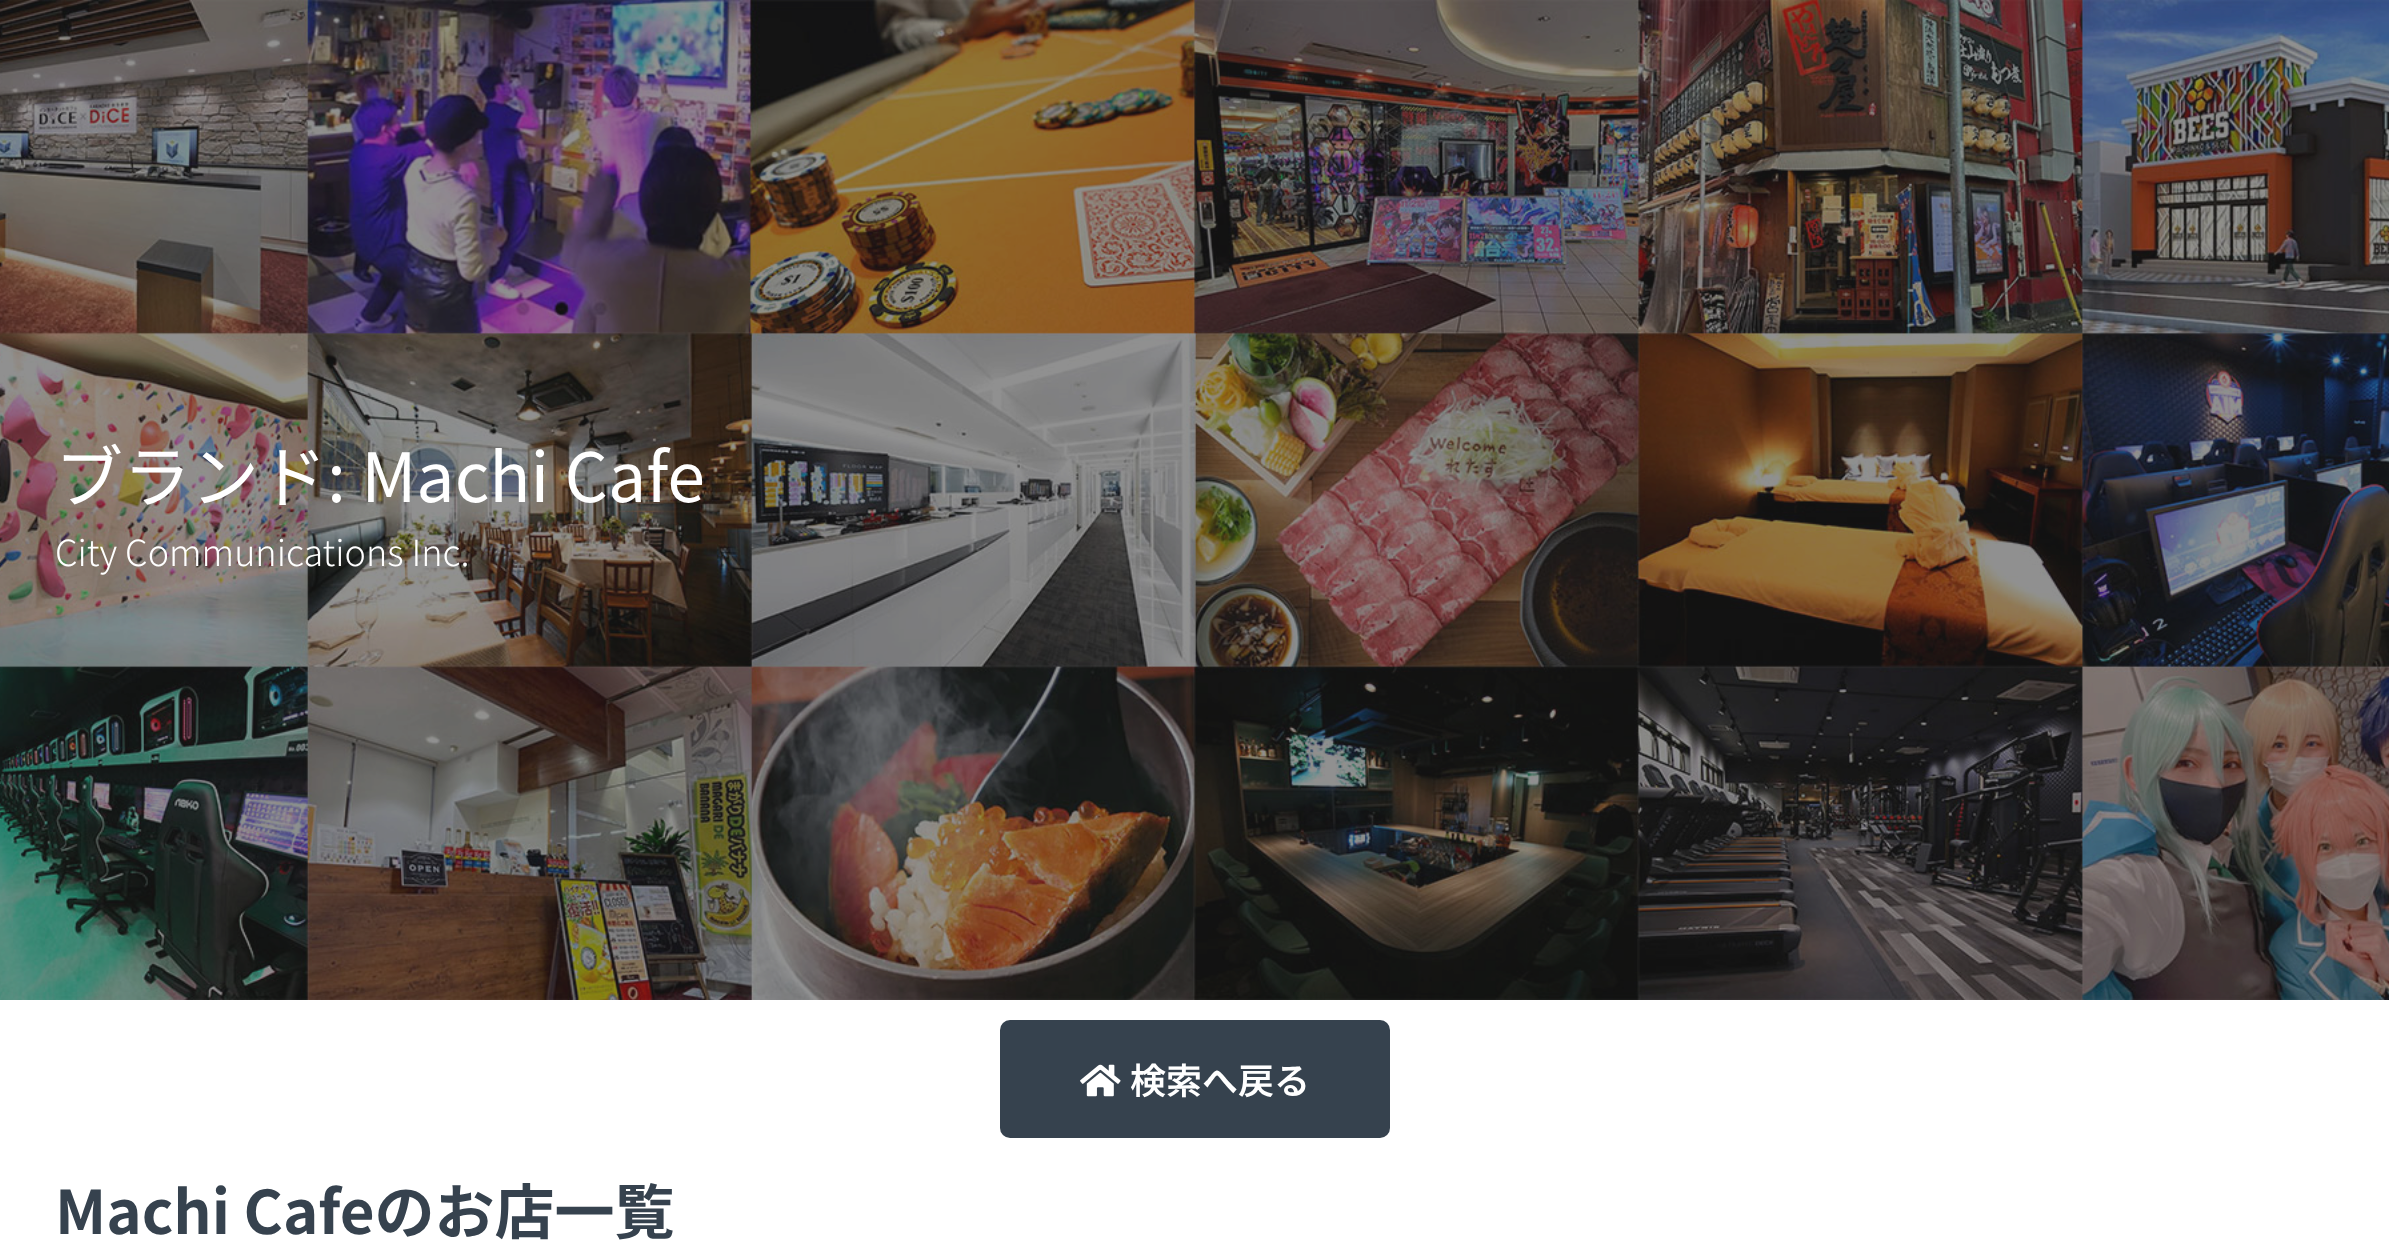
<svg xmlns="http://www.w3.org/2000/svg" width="2389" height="1254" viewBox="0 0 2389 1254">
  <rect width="100%" height="100%" fill="#ffffff"/>
  <image x="0" y="0" width="2389" height="1000" href="img1.png"/>
  <text x="55" y="502" font-family="Noto Sans JP" font-size="68" fill="#ffffff">ブランド: Machi Cafe</text>
  <text x="55" y="566" font-family="Noto Sans JP" font-size="36" font-weight="300" fill="#ffffff">City Communications Inc.</text>
  <rect x="1000" y="1020" width="390" height="118" rx="10" fill="#36424e"/>
  <image x="1080" y="1064" width="41" height="33" href="img2.png"/>
  <text x="1130" y="1094" font-family="Noto Sans JP" font-size="36" font-weight="600" fill="#ffffff">検索へ戻る</text>
  <text x="55" y="1234" font-family="Noto Sans JP" font-size="60" font-weight="bold" fill="#36424e">Machi Cafeのお店一覧</text>
</svg>
